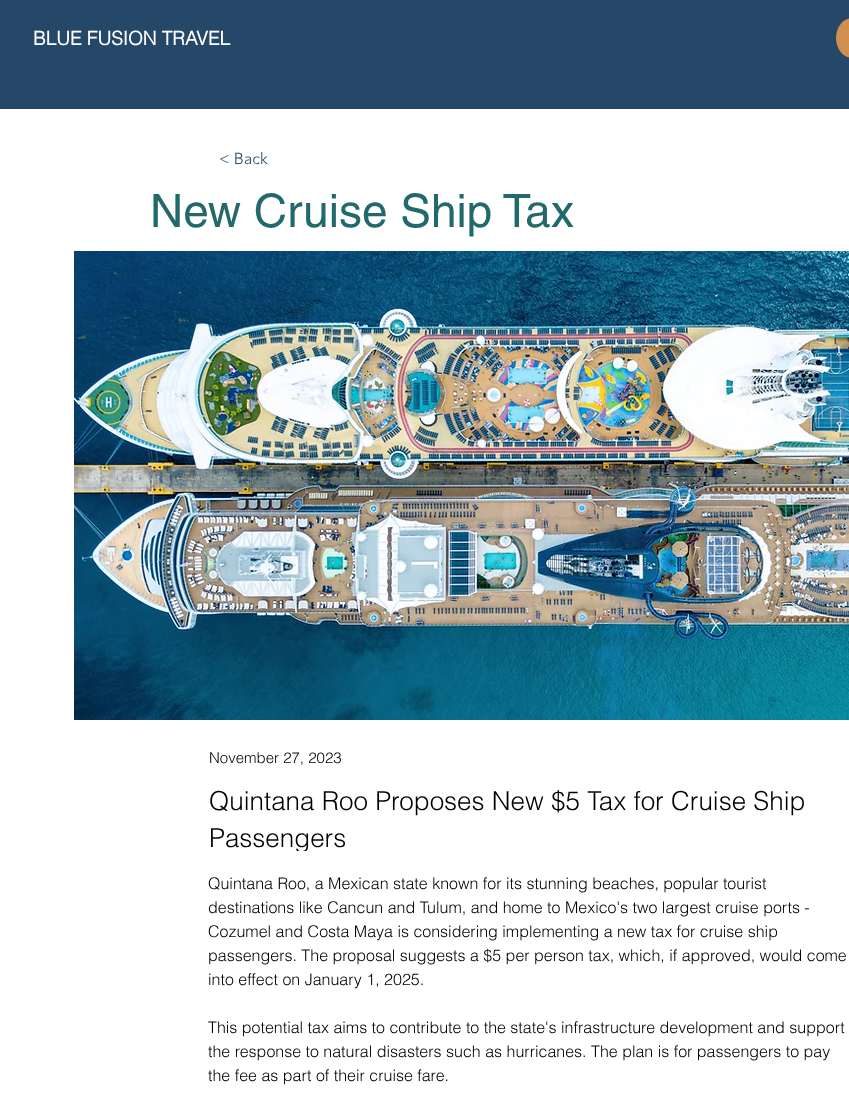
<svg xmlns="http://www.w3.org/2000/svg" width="849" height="1111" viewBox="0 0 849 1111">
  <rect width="100%" height="100%" fill="#ffffff"/>
  <rect x="0" y="0" width="849" height="109" fill="#254768"/>
  <text x="33" y="45" font-family="helvetica" font-size="19" font-weight="bold" fill="#ffffff">BLUE FUSION TRAVEL</text>
  <rect x="836" y="18" width="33" height="40" rx="20" fill="#d08f4f"/>
  <text x="219" y="164" font-family="'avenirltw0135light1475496'" font-size="16" font-weight="300" fill="#254768">&lt; Back</text>
  <text x="150" y="227" font-family="helvetica" font-size="46" fill="#21696b">New Cruise Ship Tax</text>
  <image x="74" y="251" width="775" height="469" href="img1.png"/>
  <text x="209" y="763" font-family="helvetica" font-size="15" font-weight="300" fill="#000000">November 27, 2023</text>
  <text x="209" y="810" font-family="helvetica" font-size="26" font-weight="300" fill="#000000">Quintana Roo Proposes New $5 Tax for Cruise Ship</text>
  <text x="209" y="847" font-family="helvetica" font-size="26" font-weight="300" fill="#000000">Passengers</text>
  <rect x="297" y="851" width="10" height="2" fill="#ffffff"/>
  <text x="208" y="889" font-family="helvetica" font-size="16" font-weight="300" fill="#000000">Quintana Roo, a Mexican state known for its stunning beaches, popular tourist</text>
  <text x="208" y="913" font-family="helvetica" font-size="16" font-weight="300" fill="#000000">destinations like Cancun and Tulum, and home to Mexico's two largest cruise ports -</text>
  <text x="208" y="937" font-family="helvetica" font-size="16" font-weight="300" fill="#000000">Cozumel and Costa Maya is considering implementing a new tax for cruise ship</text>
  <text x="208" y="961" font-family="helvetica" font-size="16" font-weight="300" fill="#000000">passengers. The proposal suggests a $5 per person tax, which, if approved, would come</text>
  <text x="208" y="985" font-family="helvetica" font-size="16" font-weight="300" fill="#000000">into effect on January 1, 2025.</text>
  <text x="208" y="1033" font-family="helvetica" font-size="16" font-weight="300" fill="#000000">This potential tax aims to contribute to the state's infrastructure development and support</text>
  <text x="208" y="1057" font-family="helvetica" font-size="16" font-weight="300" fill="#000000">the response to natural disasters such as hurricanes. The plan is for passengers to pay</text>
  <text x="208" y="1081" font-family="helvetica" font-size="16" font-weight="300" fill="#000000">the fee as part of their cruise fare.</text>
</svg>
